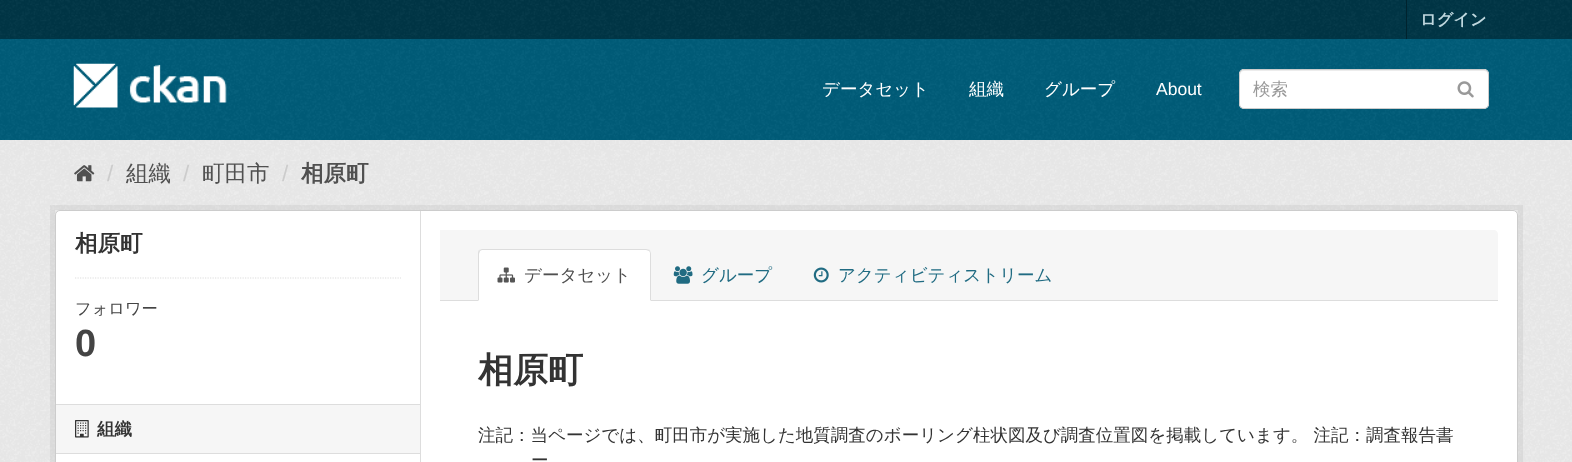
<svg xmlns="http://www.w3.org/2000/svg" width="1572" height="462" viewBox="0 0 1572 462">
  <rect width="100%" height="100%" fill="#003647"/>
  <image x="0" y="0" width="1572" height="38" href="img1.png"/>
  <rect x="1406" y="0" width="1" height="39" fill="#00232e"/>
  <text x="1420" y="25" font-family="WenQuanYi Zen Hei" font-size="16.25" font-weight="bold" fill="#bfd7de">ログイン</text>
  <rect x="0" y="39" width="1572" height="101" fill="#005d7a"/>
  <image x="0" y="39" width="1572" height="101" href="img2.png"/>
  <image x="73" y="63" width="154" height="45" href="img3.png"/>
  <text x="822" y="95" font-family="WenQuanYi Zen Hei" font-size="17.5" font-weight="500" fill="#ffffff">データセット</text>
  <text x="969" y="95" font-family="WenQuanYi Zen Hei" font-size="17.5" font-weight="500" fill="#ffffff">組織</text>
  <text x="1044" y="95" font-family="WenQuanYi Zen Hei" font-size="17.5" font-weight="500" fill="#ffffff">グループ</text>
  <text x="1156" y="95" font-family="Liberation Sans" font-size="17.5" fill="#ffffff">About</text>
  <rect x="1239" y="69" width="250" height="40" rx="5" fill="#ffffff"/>
  <path d="M1244 71H1484C1486 71 1488 73 1488 75V74C1488 72 1486 70 1484 70H1244C1242 70 1240 72 1240 74V75C1240 73 1242 71 1244 71Z" fill="#ececec"/>
  <rect x="1239.5" y="69.5" width="249" height="39" rx="4.5" fill="none" stroke="#cccccc"/>
  <text x="1253" y="95" font-family="WenQuanYi Zen Hei" font-size="17.5" font-weight="500" fill="#999999">検索</text>
  <image x="1457" y="81" width="17" height="17" href="img4.png"/>
  <rect x="0" y="140" width="1572" height="322" fill="#eeeeee"/>
  <image x="0" y="140" width="1572" height="322" href="img5.png"/>
  <image x="74" y="165" width="21" height="17" href="img6.png"/>
  <text x="107" y="181" font-family="Liberation Sans" font-size="22.5" fill="#cccccc">/</text>
  <text x="126" y="181" font-family="WenQuanYi Zen Hei" font-size="22.5" font-weight="500" fill="#505050">組織</text>
  <text x="183" y="181" font-family="Liberation Sans" font-size="22.5" fill="#cccccc">/</text>
  <text x="202" y="181" font-family="WenQuanYi Zen Hei" font-size="22.5" font-weight="500" fill="#505050">町田市</text>
  <text x="282" y="181" font-family="Liberation Sans" font-size="22.5" fill="#cccccc">/</text>
  <text x="301" y="181" font-family="WenQuanYi Zen Hei" font-size="22.5" font-weight="bold" fill="#505050">相原町</text>
  <rect x="52.5" y="207.5" width="1468" height="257" fill="none" stroke="#000000" stroke-opacity="0.05" stroke-width="5"/>
  <rect x="55.5" y="210.5" width="1462" height="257" rx="4.5" fill="#ffffff" stroke="#cccccc"/>
  <text x="75" y="251" font-family="WenQuanYi Zen Hei" font-size="22.5" font-weight="bold" fill="#333333">相原町</text>
  <path d="M75 278H401" fill="none" stroke="#dddddd" stroke-width="1.2" stroke-dasharray="1.25 1.25"/>
  <text x="75" y="314" font-family="WenQuanYi Zen Hei" font-size="16.25" font-weight="500" fill="#444444">フォロワー</text>
  <text x="75" y="356" font-family="Liberation Sans" font-size="38" font-weight="bold" fill="#444444">0</text>
  <rect x="56" y="405" width="364" height="48" fill="#f6f6f6"/>
  <rect x="56" y="404" width="364" height="1" fill="#dddddd"/>
  <rect x="56" y="453" width="364" height="1" fill="#dddddd"/>
  <image x="75" y="420" width="14" height="18" href="img7.png"/>
  <text x="97" y="435" font-family="WenQuanYi Zen Hei" font-size="17.5" font-weight="bold" fill="#333333">組織</text>
  <rect x="420" y="211" width="1" height="251" fill="#dddddd"/>
  <path d="M440 230H1494C1496 230 1498 232 1498 234V301H440Z" fill="#f6f6f6"/>
  <rect x="440" y="300" width="1058" height="1" fill="#dddddd"/>
  <path d="M483 249H646C649 249 651 251 651 254V301H478V254C478 251 480 249 483 249Z" fill="#ffffff"/>
  <path d="M482 249C481 249 480 250 479 250L480 251L482 250H646L649 251L650 250C649 250 648 249 646 249Z" fill="#dddddd"/>
  <path d="M651 301V254C651 252 650 251 650 250L649 251C650 252 650 253 650 254V300Z" fill="#dddddd"/>
  <path d="M479 250C478 251 478 253 478 254V301L479 300V254L480 251Z" fill="#dddddd"/>
  <image x="497" y="267" width="18" height="16" href="img8.png"/>
  <text x="524" y="281" font-family="WenQuanYi Zen Hei" font-size="17.5" font-weight="500" fill="#505050">データセット</text>
  <image x="673" y="266" width="20" height="18" href="img9.png"/>
  <text x="701" y="281" font-family="WenQuanYi Zen Hei" font-size="17.5" font-weight="500" fill="#206b82">グループ</text>
  <image x="813" y="267" width="16" height="16" href="img10.png"/>
  <text x="838" y="281" font-family="WenQuanYi Zen Hei" font-size="17.5" font-weight="500" fill="#206b82">アクティビティストリーム</text>
  <text x="478" y="382" font-family="WenQuanYi Zen Hei" font-size="35" font-weight="bold" fill="#333333">相原町</text>
  <text x="478" y="441" font-family="WenQuanYi Zen Hei" font-size="17.5" font-weight="500" fill="#333333">注記：当ページでは、町田市が実施した地質調査のボーリング柱状図及び調査位置図を掲載しています。 注記：調査報告書</text>
  <text x="531" y="466" font-family="WenQuanYi Zen Hei" font-size="17.5" font-weight="500" fill="#333333">ー</text>
</svg>
